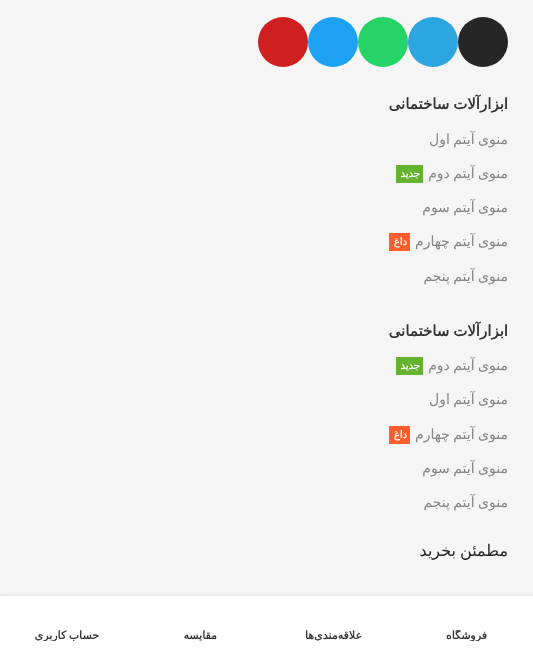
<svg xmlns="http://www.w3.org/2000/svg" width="533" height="651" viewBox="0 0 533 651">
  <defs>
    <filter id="blur1" x="-50%" y="-200%" width="200%" height="500%"><feGaussianBlur stdDeviation="1.5"/></filter>
    <clipPath id="clip1"><rect x="410" y="630" width="113" height="11"/></clipPath>
    <clipPath id="clip2"><rect x="10" y="630" width="113" height="11"/></clipPath>
  </defs>
  <rect width="100%" height="100%" fill="#f5f5f5"/>
  <circle cx="483" cy="42" r="25" fill="#262626"/>
  <circle cx="433" cy="42" r="25" fill="#2ca5e0"/>
  <circle cx="383" cy="42" r="25" fill="#25d366"/>
  <circle cx="333" cy="42" r="25" fill="#1da1f2"/>
  <circle cx="283" cy="42" r="25" fill="#cd201f"/>
  <text x="508" y="109" word-spacing="-1" font-family="DejaVu Sans" font-size="15" font-weight="bold" direction="rtl" fill="#333333">ابزارآلات ساختمانی</text>
  <text x="508" y="144" word-spacing="-1" font-family="DejaVu Sans" font-size="14" direction="rtl" fill="#848484">منوی آیتم اول</text>
  <text x="508" y="178" word-spacing="-1" font-family="DejaVu Sans" font-size="14" direction="rtl" fill="#848484">منوی آیتم دوم</text>
  <rect x="396" y="165" width="27" height="18" fill="#65b32e"/>
  <text x="420" y="177" font-family="DejaVu Sans" font-size="10" font-weight="bold" letter-spacing="0.5" direction="rtl" fill="#ffffff">جدید</text>
  <text x="508" y="212" word-spacing="-1" font-family="DejaVu Sans" font-size="14" direction="rtl" fill="#848484">منوی آیتم سوم</text>
  <text x="508" y="246" word-spacing="-1" font-family="DejaVu Sans" font-size="14" direction="rtl" fill="#848484">منوی آیتم چهارم</text>
  <rect x="389" y="233" width="21" height="18" fill="#ff5e2b"/>
  <text x="407" y="245" font-family="DejaVu Sans" font-size="10" font-weight="bold" letter-spacing="0.5" direction="rtl" fill="#ffffff">داغ</text>
  <text x="508" y="281" word-spacing="-1" font-family="DejaVu Sans" font-size="14" direction="rtl" fill="#848484">منوی آیتم پنجم</text>
  <text x="508" y="336" word-spacing="-1" font-family="DejaVu Sans" font-size="15" font-weight="bold" direction="rtl" fill="#333333">ابزارآلات ساختمانی</text>
  <text x="508" y="370" word-spacing="-1" font-family="DejaVu Sans" font-size="14" direction="rtl" fill="#848484">منوی آیتم دوم</text>
  <rect x="396" y="357" width="27" height="18" fill="#65b32e"/>
  <text x="420" y="369" font-family="DejaVu Sans" font-size="10" font-weight="bold" letter-spacing="0.5" direction="rtl" fill="#ffffff">جدید</text>
  <text x="508" y="404" word-spacing="-1" font-family="DejaVu Sans" font-size="14" direction="rtl" fill="#848484">منوی آیتم اول</text>
  <text x="508" y="439" word-spacing="-1" font-family="DejaVu Sans" font-size="14" direction="rtl" fill="#848484">منوی آیتم چهارم</text>
  <rect x="389" y="426" width="21" height="18" fill="#ff5e2b"/>
  <text x="407" y="438" font-family="DejaVu Sans" font-size="10" font-weight="bold" letter-spacing="0.5" direction="rtl" fill="#ffffff">داغ</text>
  <text x="508" y="473" word-spacing="-1" font-family="DejaVu Sans" font-size="14" direction="rtl" fill="#848484">منوی آیتم سوم</text>
  <text x="508" y="507" word-spacing="-1" font-family="DejaVu Sans" font-size="14" direction="rtl" fill="#848484">منوی آیتم پنجم</text>
  <text x="508" y="556" word-spacing="-1" font-family="DejaVu Sans" font-size="16" direction="rtl" fill="#242424">مطمئن بخرید</text>
  <rect x="0" y="596" width="533" height="55" fill="#000000" fill-opacity="0.15" filter="url(#blur1)"/>
  <rect x="0" y="596" width="533" height="55" fill="#ffffff"/>
  <g clip-path="url(#clip1)">
    <text x="487" y="639" font-family="DejaVu Sans" font-size="11" font-weight="bold" direction="rtl" fill="#333333">فروشگاه</text>
  </g>
  <text x="362" y="639" font-family="DejaVu Sans" font-size="11" font-weight="bold" direction="rtl" fill="#333333">علاقه‌مندی‌ها</text>
  <text x="217" y="639" font-family="DejaVu Sans" font-size="11" font-weight="bold" direction="rtl" fill="#333333">مقایسه</text>
  <g clip-path="url(#clip2)">
    <text x="99" y="639" word-spacing="-1" font-family="DejaVu Sans" font-size="11" font-weight="bold" direction="rtl" fill="#333333">حساب کاربری</text>
  </g>
</svg>
